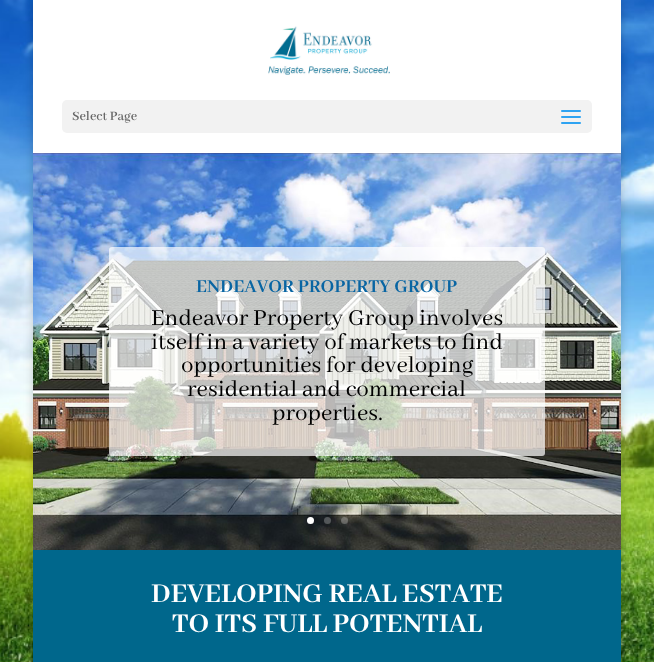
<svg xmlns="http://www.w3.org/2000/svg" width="654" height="662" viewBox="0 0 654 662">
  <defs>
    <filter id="blur1" x="-50%" y="-200%" width="200%" height="500%"><feGaussianBlur stdDeviation="5"/></filter>
  </defs>
  <rect width="100%" height="100%" fill="#ffffff"/>
  <image x="0" y="0" width="654" height="662" href="img1.png"/>
  <rect x="33" y="0" width="588" height="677" fill="#000000" fill-opacity="0.2" filter="url(#blur1)"/>
  <image x="33" y="153" width="588" height="397" href="img4.png"/>
  <rect x="33" y="153" width="588" height="1" fill="#000000" fill-opacity="0.1"/>
  <rect x="33" y="0" width="588" height="153" fill="#ffffff"/>
  <image x="268" y="26" width="122" height="49" href="img2.png"/>
  <rect x="62" y="100" width="530" height="33" rx="5" fill="#f2f2f2"/>
  <text x="72" y="120" font-family="Abhaya Libre SemiBold" font-size="14" font-weight="600" fill="#666666">Select Page</text>
  <image x="561" y="110" width="20" height="14" href="img3.png"/>
  <rect x="109" y="247" width="436" height="209" rx="3" fill="#ffffff" fill-opacity="0.7"/>
  <text x="196" y="292" font-family="Abhaya Libre" font-size="20" font-weight="bold" fill="#0865a3">ENDEAVOR PROPERTY GROUP</text>
  <text x="151" y="325" font-family="Abhaya Libre" font-size="25" fill="#000000">Endeavor Property Group involves</text>
  <text x="151" y="349" font-family="Abhaya Libre" font-size="25" fill="#000000">itself in a variety of markets to find</text>
  <text x="181" y="372" font-family="Abhaya Libre" font-size="25" fill="#000000">opportunities for developing</text>
  <text x="187" y="396" font-family="Abhaya Libre" font-size="25" fill="#000000">residential and commercial</text>
  <text x="272" y="420" font-family="Abhaya Libre" font-size="25" fill="#000000">properties.</text>
  <circle cx="310.5" cy="520.5" r="3.5" fill="#ffffff"/>
  <circle cx="327.5" cy="520.5" r="3.5" fill="#ffffff" fill-opacity="0.25"/>
  <circle cx="344.5" cy="520.5" r="3.5" fill="#ffffff" fill-opacity="0.25"/>
  <rect x="33" y="550" width="588" height="112" fill="#00678c"/>
  <text x="151" y="602" font-family="Abhaya Libre" font-size="30" font-weight="bold" fill="#ffffff">DEVELOPING REAL ESTATE</text>
  <text x="172" y="632" font-family="Abhaya Libre" font-size="30" font-weight="bold" fill="#ffffff">TO ITS FULL POTENTIAL</text>
</svg>
